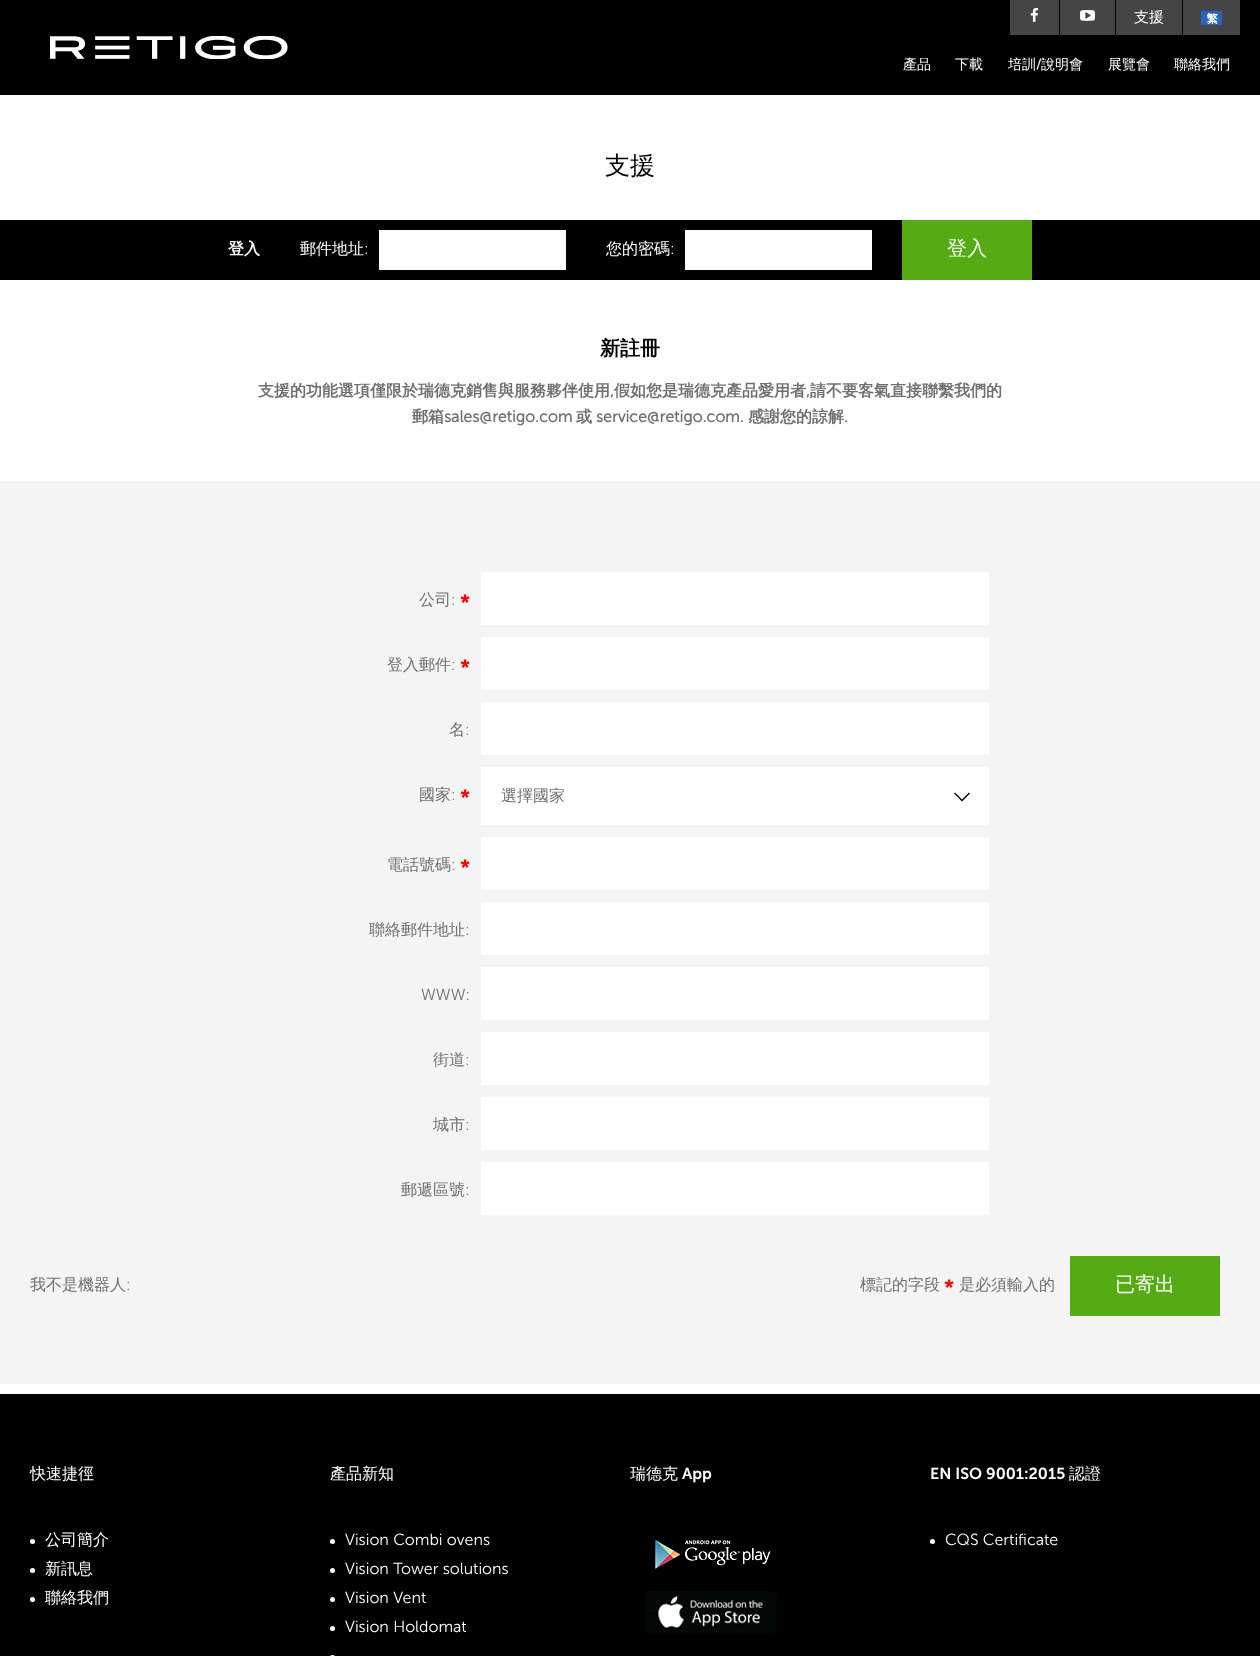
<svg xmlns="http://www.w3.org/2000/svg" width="1260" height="1656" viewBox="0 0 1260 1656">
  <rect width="100%" height="100%" fill="#ffffff"/>
  <rect x="0" y="0" width="1260" height="95" fill="#000000"/>
  <image x="50" y="36" width="238" height="23" href="img1.png"/>
  <rect x="1010" y="0" width="49" height="35" fill="#454545"/>
  <image x="1030" y="7" width="9" height="15" href="img2.png"/>
  <rect x="1060" y="0" width="55" height="35" fill="#454545"/>
  <image x="1080" y="10" width="15" height="11" href="img3.png"/>
  <rect x="1116" y="0" width="66" height="35" fill="#454545"/>
  <text x="1134" y="22" font-family="WenQuanYi Zen Hei" font-size="15" font-weight="500" fill="#ffffff">支援</text>
  <rect x="1183" y="0" width="57" height="35" fill="#454545"/>
  <image x="1201" y="11" width="21" height="14" href="img4.png"/>
  <text x="903" y="69" font-family="WenQuanYi Zen Hei" font-size="14" font-weight="500" fill="#ffffff">產品</text>
  <text x="955" y="69" font-family="WenQuanYi Zen Hei" font-size="14" font-weight="500" fill="#ffffff">下載</text>
  <text x="1008" y="69" font-family="WenQuanYi Zen Hei" font-size="14" font-weight="500" fill="#ffffff">培訓</text>
  <text x="1036" y="69" font-family="'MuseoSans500'" font-size="14" fill="#ffffff">/</text>
  <text x="1041" y="69" font-family="WenQuanYi Zen Hei" font-size="14" font-weight="500" fill="#ffffff">說明會</text>
  <text x="1108" y="69" font-family="WenQuanYi Zen Hei" font-size="14" font-weight="500" fill="#ffffff">展覽會</text>
  <text x="1174" y="69" font-family="WenQuanYi Zen Hei" font-size="14" font-weight="500" fill="#ffffff">聯絡我們</text>
  <text x="605" y="174" font-family="WenQuanYi Zen Hei" font-size="25" font-weight="500" fill="#000000">支援</text>
  <rect x="0" y="220" width="1260" height="60" fill="#000000"/>
  <text x="228" y="254" font-family="WenQuanYi Zen Hei" font-size="16" font-weight="bold" fill="#ffffff">登入</text>
  <text x="300" y="254" font-family="WenQuanYi Zen Hei" font-size="16" font-weight="500" fill="#ffffff">郵件地址</text>
  <text x="364" y="254" font-family="'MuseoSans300'" font-size="16" fill="#ffffff">:</text>
  <rect x="379" y="230" width="187" height="40" fill="#ffffff"/>
  <text x="606" y="254" font-family="WenQuanYi Zen Hei" font-size="16" font-weight="500" fill="#ffffff">您的密碼</text>
  <text x="670" y="254" font-family="'MuseoSans300'" font-size="16" fill="#ffffff">:</text>
  <rect x="685" y="230" width="187" height="40" fill="#ffffff"/>
  <rect x="902" y="220" width="130" height="60" fill="#56aa13"/>
  <text x="947" y="255" font-family="WenQuanYi Zen Hei" font-size="20" font-weight="500" fill="#ffffff">登入</text>
  <text x="600" y="355" font-family="WenQuanYi Zen Hei" font-size="20" font-weight="bold" fill="#000000">新註冊</text>
  <text x="258" y="396" font-family="WenQuanYi Zen Hei" font-size="16" font-weight="bold" fill="#6f6f6f">支援的功能選項僅限於瑞德克銷售與服務夥伴使用</text>
  <text x="610" y="396" font-family="'MuseoSans300'" font-size="16" font-weight="bold" fill="#6f6f6f">,</text>
  <text x="614" y="396" font-family="WenQuanYi Zen Hei" font-size="16" font-weight="bold" fill="#6f6f6f">假如您是瑞德克產品愛用者</text>
  <text x="806" y="396" font-family="'MuseoSans300'" font-size="16" font-weight="bold" fill="#6f6f6f">,</text>
  <text x="810" y="396" font-family="WenQuanYi Zen Hei" font-size="16" font-weight="bold" fill="#6f6f6f">請不要客氣直接聯繫我們的</text>
  <text x="412" y="422" font-family="WenQuanYi Zen Hei" font-size="16" font-weight="bold" fill="#6f6f6f">郵箱</text>
  <text x="444" y="422" font-family="'MuseoSans300'" font-size="16" font-weight="bold" fill="#6f6f6f">sales@retigo.com</text>
  <text x="576" y="422" font-family="WenQuanYi Zen Hei" font-size="16" font-weight="bold" fill="#6f6f6f">或</text>
  <text x="596" y="422" font-family="'MuseoSans300'" font-size="16" font-weight="bold" fill="#6f6f6f">service@retigo.com.</text>
  <text x="748" y="422" font-family="WenQuanYi Zen Hei" font-size="16" font-weight="bold" fill="#6f6f6f">感謝您的諒解</text>
  <text x="844" y="422" font-family="'MuseoSans300'" font-size="16" font-weight="bold" fill="#6f6f6f">.</text>
  <rect x="0" y="481" width="1260" height="903" fill="#f4f4f4"/>
  <text x="419" y="605" font-family="WenQuanYi Zen Hei" font-size="16" font-weight="500" fill="#6f6f6f">公司</text>
  <text x="451" y="605" font-family="'MuseoSans300'" font-size="16" fill="#6f6f6f">:</text>
  <text x="460" y="610" font-family="'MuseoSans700'" font-size="22" fill="#ff0004">*</text>
  <rect x="481" y="572" width="508" height="53" fill="#ffffff"/>
  <text x="387" y="670" font-family="WenQuanYi Zen Hei" font-size="16" font-weight="500" fill="#6f6f6f">登入郵件</text>
  <text x="451" y="670" font-family="'MuseoSans300'" font-size="16" fill="#6f6f6f">:</text>
  <text x="460" y="675" font-family="'MuseoSans700'" font-size="22" fill="#ff0004">*</text>
  <rect x="481" y="637" width="508" height="53" fill="#ffffff"/>
  <text x="449" y="735" font-family="WenQuanYi Zen Hei" font-size="16" font-weight="500" fill="#6f6f6f">名</text>
  <text x="465" y="735" font-family="'MuseoSans300'" font-size="16" fill="#6f6f6f">:</text>
  <rect x="481" y="702" width="508" height="53" fill="#ffffff"/>
  <text x="419" y="800" font-family="WenQuanYi Zen Hei" font-size="16" font-weight="500" fill="#6f6f6f">國家</text>
  <text x="451" y="800" font-family="'MuseoSans300'" font-size="16" fill="#6f6f6f">:</text>
  <text x="460" y="805" font-family="'MuseoSans700'" font-size="22" fill="#ff0004">*</text>
  <rect x="481" y="767" width="508" height="58" fill="#ffffff"/>
  <text x="501" y="801" font-family="WenQuanYi Zen Hei" font-size="16" font-weight="500" fill="#6f6f6f">選擇國家</text>
  <image x="954" y="792" width="16" height="10" href="img5.png"/>
  <text x="387" y="870" font-family="WenQuanYi Zen Hei" font-size="16" font-weight="500" fill="#6f6f6f">電話號碼</text>
  <text x="451" y="870" font-family="'MuseoSans300'" font-size="16" fill="#6f6f6f">:</text>
  <text x="460" y="875" font-family="'MuseoSans700'" font-size="22" fill="#ff0004">*</text>
  <rect x="481" y="837" width="508" height="53" fill="#ffffff"/>
  <text x="369" y="935" font-family="WenQuanYi Zen Hei" font-size="16" font-weight="500" fill="#6f6f6f">聯絡郵件地址</text>
  <text x="465" y="935" font-family="'MuseoSans300'" font-size="16" fill="#6f6f6f">:</text>
  <rect x="481" y="902" width="508" height="53" fill="#ffffff"/>
  <text x="421" y="1000" font-family="'MuseoSans300'" font-size="16" fill="#6f6f6f">WWW:</text>
  <rect x="481" y="967" width="508" height="53" fill="#ffffff"/>
  <text x="433" y="1065" font-family="WenQuanYi Zen Hei" font-size="16" font-weight="500" fill="#6f6f6f">街道</text>
  <text x="465" y="1065" font-family="'MuseoSans300'" font-size="16" fill="#6f6f6f">:</text>
  <rect x="481" y="1032" width="508" height="53" fill="#ffffff"/>
  <text x="433" y="1130" font-family="WenQuanYi Zen Hei" font-size="16" font-weight="500" fill="#6f6f6f">城市</text>
  <text x="465" y="1130" font-family="'MuseoSans300'" font-size="16" fill="#6f6f6f">:</text>
  <rect x="481" y="1097" width="508" height="53" fill="#ffffff"/>
  <text x="401" y="1195" font-family="WenQuanYi Zen Hei" font-size="16" font-weight="500" fill="#6f6f6f">郵遞區號</text>
  <text x="465" y="1195" font-family="'MuseoSans300'" font-size="16" fill="#6f6f6f">:</text>
  <rect x="481" y="1162" width="508" height="53" fill="#ffffff"/>
  <text x="30" y="1290" font-family="WenQuanYi Zen Hei" font-size="16" font-weight="500" fill="#6f6f6f">我不是機器人</text>
  <text x="126" y="1290" font-family="'MuseoSans300'" font-size="16" fill="#6f6f6f">:</text>
  <text x="860" y="1290" font-family="WenQuanYi Zen Hei" font-size="16" font-weight="500" fill="#6f6f6f">標記的字段</text>
  <text x="944" y="1295" font-family="'MuseoSans700'" font-size="22" fill="#ff0004">*</text>
  <text x="959" y="1290" font-family="WenQuanYi Zen Hei" font-size="16" font-weight="500" fill="#6f6f6f">是必須輸入的</text>
  <rect x="1070" y="1256" width="150" height="60" fill="#56aa13"/>
  <text x="1115" y="1291" font-family="WenQuanYi Zen Hei" font-size="20" font-weight="500" fill="#ffffff">已寄出</text>
  <rect x="0" y="1394" width="1260" height="262" fill="#000000"/>
  <text x="30" y="1479" font-family="WenQuanYi Zen Hei" font-size="16" font-weight="500" fill="#ffffff">快速捷徑</text>
  <circle cx="32.5" cy="1541.5" r="2.5" fill="#ffffff"/>
  <text x="45" y="1545" font-family="WenQuanYi Zen Hei" font-size="16" font-weight="500" fill="#ffffff">公司簡介</text>
  <circle cx="32.5" cy="1570.5" r="2.5" fill="#ffffff"/>
  <text x="45" y="1574" font-family="WenQuanYi Zen Hei" font-size="16" font-weight="500" fill="#ffffff">新訊息</text>
  <circle cx="32.5" cy="1599.5" r="2.5" fill="#ffffff"/>
  <text x="45" y="1603" font-family="WenQuanYi Zen Hei" font-size="16" font-weight="500" fill="#ffffff">聯絡我們</text>
  <text x="330" y="1479" font-family="WenQuanYi Zen Hei" font-size="16" font-weight="500" fill="#ffffff">產品新知</text>
  <circle cx="332.5" cy="1541.5" r="2.5" fill="#ffffff"/>
  <text x="345" y="1545" font-family="'MuseoSans300'" font-size="16" fill="#ffffff">Vision Combi ovens</text>
  <circle cx="332.5" cy="1570.5" r="2.5" fill="#ffffff"/>
  <text x="345" y="1574" font-family="'MuseoSans300'" font-size="16" fill="#ffffff">Vision Tower solutions</text>
  <circle cx="332.5" cy="1599.5" r="2.5" fill="#ffffff"/>
  <text x="345" y="1603" font-family="'MuseoSans300'" font-size="16" fill="#ffffff">Vision Vent</text>
  <circle cx="332.5" cy="1628.5" r="2.5" fill="#ffffff"/>
  <text x="345" y="1632" font-family="'MuseoSans300'" font-size="16" fill="#ffffff">Vision Holdomat</text>
  <rect x="330" y="1655" width="5" height="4" rx="2.5" fill="#ffffff"/>
  <text x="630" y="1479" font-family="WenQuanYi Zen Hei" font-size="16" font-weight="500" fill="#ffffff">瑞德克</text>
  <text x="682" y="1479" font-family="'MuseoSans700'" font-size="16" fill="#ffffff">App</text>
  <image x="655" y="1540" width="116" height="29" href="img6.png"/>
  <image x="645" y="1591" width="132" height="43" href="img7.png"/>
  <text x="930" y="1479" font-family="'MuseoSans700'" font-size="16" fill="#ffffff">EN ISO 9001:2015</text>
  <text x="1069" y="1479" font-family="WenQuanYi Zen Hei" font-size="16" font-weight="500" fill="#ffffff">認證</text>
  <circle cx="932.5" cy="1541.5" r="2.5" fill="#ffffff"/>
  <text x="945" y="1545" font-family="'MuseoSans300'" font-size="16" fill="#ffffff">CQS Certificate</text>
</svg>
